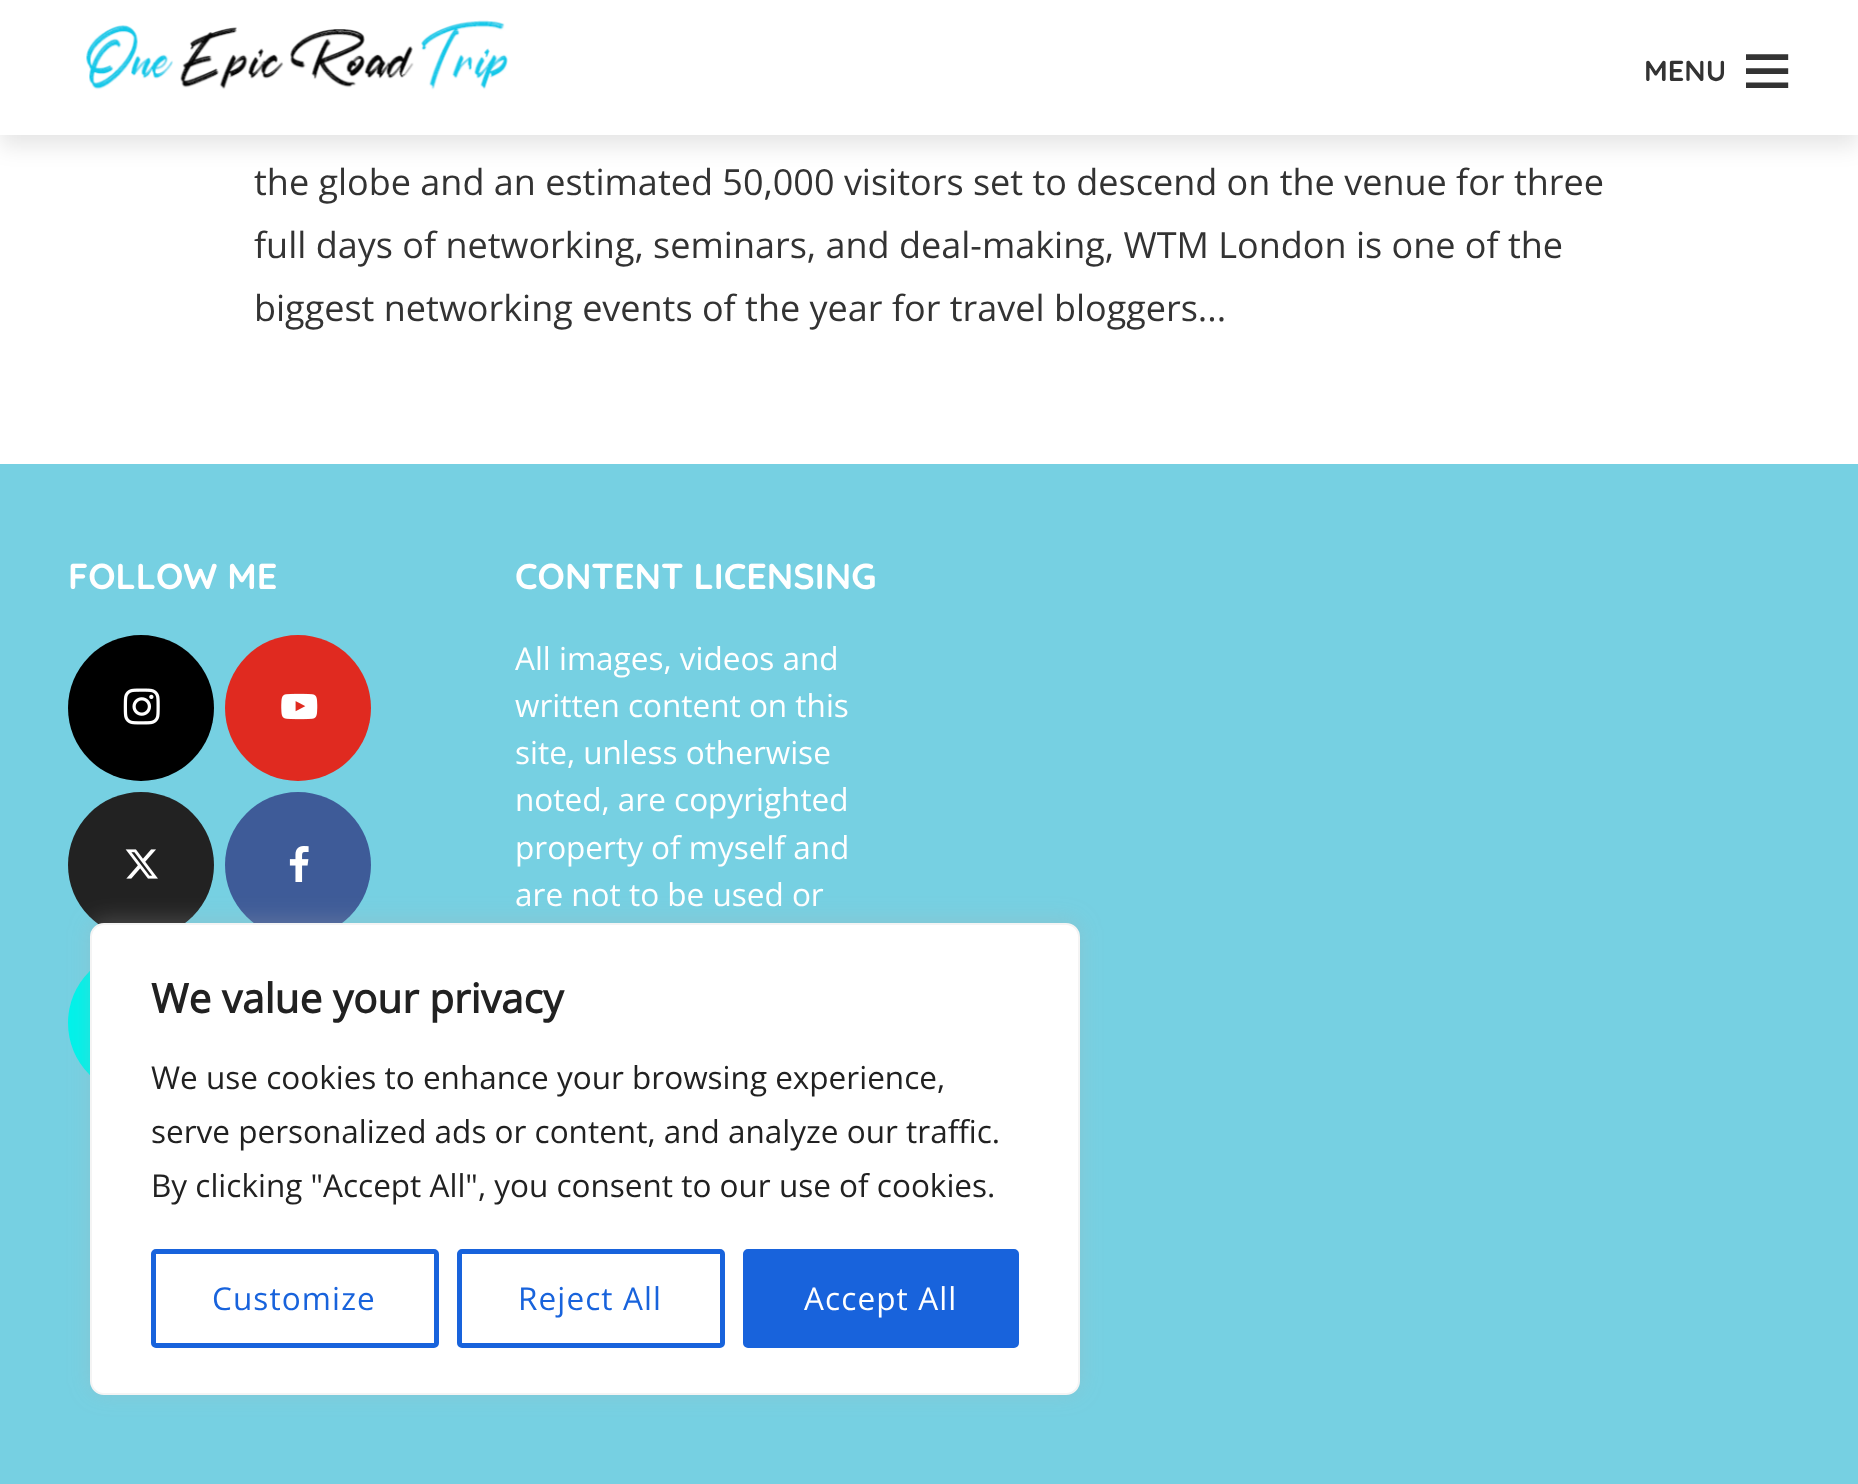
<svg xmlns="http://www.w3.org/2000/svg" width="1858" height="1484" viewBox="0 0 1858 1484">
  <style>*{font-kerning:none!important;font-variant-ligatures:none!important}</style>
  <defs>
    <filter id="blur1" x="-50%" y="-200%" width="200%" height="500%"><feGaussianBlur stdDeviation="11"/></filter>
  </defs>
  <rect width="100%" height="100%" fill="#ffffff"/>
  <rect x="0" y="11" width="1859" height="135" fill="#000000" fill-opacity="0.1" filter="url(#blur1)"/>
  <rect x="0" y="0" width="1858" height="135" fill="#ffffff"/>
  <image x="86" y="20" width="422" height="70" href="img1.png"/>
  <text x="1644" y="81" font-family="Quicksand" font-size="29" font-weight="bold" fill="#333333">MENU</text>
  <text x="1746" y="88" font-family="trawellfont" font-size="45" fill="#333333">𐦺</text>
  <text x="254" y="195" font-family="Open Sans" font-size="36" fill="#333333">the globe and an estimated 50,000 visitors set to descend on the venue for three</text>
  <text x="254" y="258" font-family="Open Sans" font-size="36" fill="#333333">full days of networking, seminars, and deal-making, WTM London is one of the</text>
  <text x="254" y="321" font-family="Open Sans" font-size="36" fill="#333333">biggest networking events of the year for travel bloggers...</text>
  <rect x="0" y="464" width="1858" height="1020" fill="#76d0e2"/>
  <text x="68" y="589" font-family="Quicksand" font-size="36" font-weight="bold" fill="#ffffff">FOLLOW ME</text>
  <circle cx="141" cy="708" r="73" fill="#000000"/>
  <image x="123" y="688" width="37" height="37" href="img2.png"/>
  <circle cx="298" cy="708" r="73" fill="#e02a20"/>
  <image x="281" y="693" width="37" height="27" href="img3.png"/>
  <circle cx="141" cy="865" r="73" fill="#222222"/>
  <image x="125" y="849" width="33" height="30" href="img4.png"/>
  <circle cx="298" cy="865" r="73" fill="#3e5b98"/>
  <image x="289" y="846" width="20" height="36" href="img5.png"/>
  <circle cx="141" cy="1023" r="73" fill="#00f2ea"/>
  <text x="515" y="589" font-family="Quicksand" font-size="36" font-weight="bold" fill="#ffffff">CONTENT LICENSING</text>
  <text x="515" y="670" font-family="Open Sans" font-size="31.5" fill="#ffffff">All images, videos and</text>
  <text x="515" y="717" font-family="Open Sans" font-size="31.5" fill="#ffffff">written content on this</text>
  <text x="515" y="764" font-family="Open Sans" font-size="31.5" fill="#ffffff">site, unless otherwise</text>
  <text x="515" y="811" font-family="Open Sans" font-size="31.5" fill="#ffffff">noted, are copyrighted</text>
  <text x="515" y="859" font-family="Open Sans" font-size="31.5" fill="#ffffff">property of myself and</text>
  <text x="515" y="906" font-family="Open Sans" font-size="31.5" fill="#ffffff">are not to be used or</text>
  <rect x="90" y="920" width="990" height="473" rx="14" fill="#acabab" fill-opacity="0.3" filter="url(#blur1)"/>
  <rect x="91" y="924" width="988" height="470" rx="13" fill="#ffffff" stroke="#f4f4f4" stroke-width="2"/>
  <text x="151" y="1013" font-family="Open Sans" font-size="40.5" font-weight="bold" fill="#212121">We value your privacy</text>
  <text x="151" y="1089" font-family="Open Sans" font-size="31.5" fill="#212121">We use cookies to enhance your browsing experience,</text>
  <text x="151" y="1143" font-family="Open Sans" font-size="31.5" fill="#212121">serve personalized ads or content, and analyze our traffic.</text>
  <text x="151" y="1197" font-family="Open Sans" font-size="31.5" fill="#212121">By clicking "Accept All", you consent to our use of cookies.</text>
  <rect x="153.5" y="1251.5" width="283" height="94" rx="2.5" fill="none" stroke="#1863dc" stroke-width="5"/>
  <text x="212" y="1310" font-family="Open Sans" font-size="31.5" letter-spacing="1.1" fill="#1863dc">Customize</text>
  <rect x="459.5" y="1251.5" width="263" height="94" rx="2.5" fill="none" stroke="#1863dc" stroke-width="5"/>
  <text x="518" y="1310" font-family="Open Sans" font-size="31.5" letter-spacing="1.1" fill="#1863dc">Reject All</text>
  <rect x="745.5" y="1251.5" width="271" height="94" rx="2.5" fill="#1863dc" stroke="#1863dc" stroke-width="5"/>
  <text x="804" y="1310" font-family="Open Sans" font-size="31.5" letter-spacing="1.1" fill="#ffffff">Accept All</text>
</svg>
